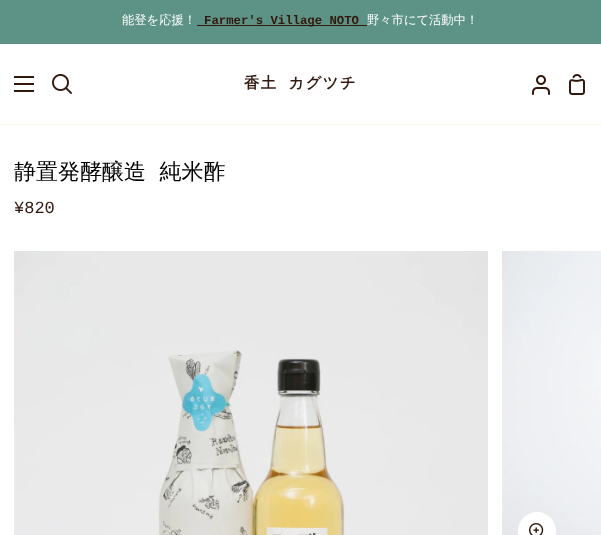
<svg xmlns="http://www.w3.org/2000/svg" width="601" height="535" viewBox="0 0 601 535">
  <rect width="100%" height="100%" fill="#ffffff"/>
  <rect x="0" y="124" width="601" height="1" fill="#f9f4ec"/>
  <rect x="0" y="0" width="601" height="44" fill="#5d9386"/>
  <text x="122" y="24" font-family="WenQuanYi Zen Hei" font-size="12.3" font-weight="500" fill="#ffffff">能登を応援！</text>
  <rect x="197" y="25" width="170" height="1" fill="#32190e"/>
  <text x="204" y="24" font-family="Liberation Mono" font-size="12.3" font-weight="bold" fill="#32190e">Farmer's Village NOTO</text>
  <text x="367" y="24" font-family="WenQuanYi Zen Hei" font-size="12.3" font-weight="500" fill="#ffffff">野々市にて活動中！</text>
  <rect x="14" y="76" width="20" height="2" fill="#32190e"/>
  <rect x="14" y="83" width="20" height="2" fill="#32190e"/>
  <rect x="14" y="90" width="20" height="2" fill="#32190e"/>
  <image x="52" y="74" width="20" height="20" href="img1.png"/>
  <text x="244" y="88" word-spacing="5" font-family="WenQuanYi Zen Hei" font-size="15.25" font-weight="bold" letter-spacing="1.5" fill="#32190e">香土 カグツチ</text>
  <image x="532" y="75" width="18" height="20" href="img2.png"/>
  <image x="569" y="74" width="16" height="21" href="img3.png"/>
  <text x="14" y="179" word-spacing="7" font-family="WenQuanYi Zen Hei" font-size="22" font-weight="500" fill="#000000">静置発酵醸造 純米酢</text>
  <text x="14" y="213" font-family="Liberation Mono" font-size="17" fill="#32190e">¥820</text>
  <image x="14" y="251" width="474" height="284" href="img4.png"/>
  <image x="502" y="251" width="99" height="284" href="img5.png"/>
  <circle cx="537" cy="531" r="19" fill="#ffffff"/>
  <image x="529" y="523" width="15" height="12" href="img6.png"/>
</svg>
